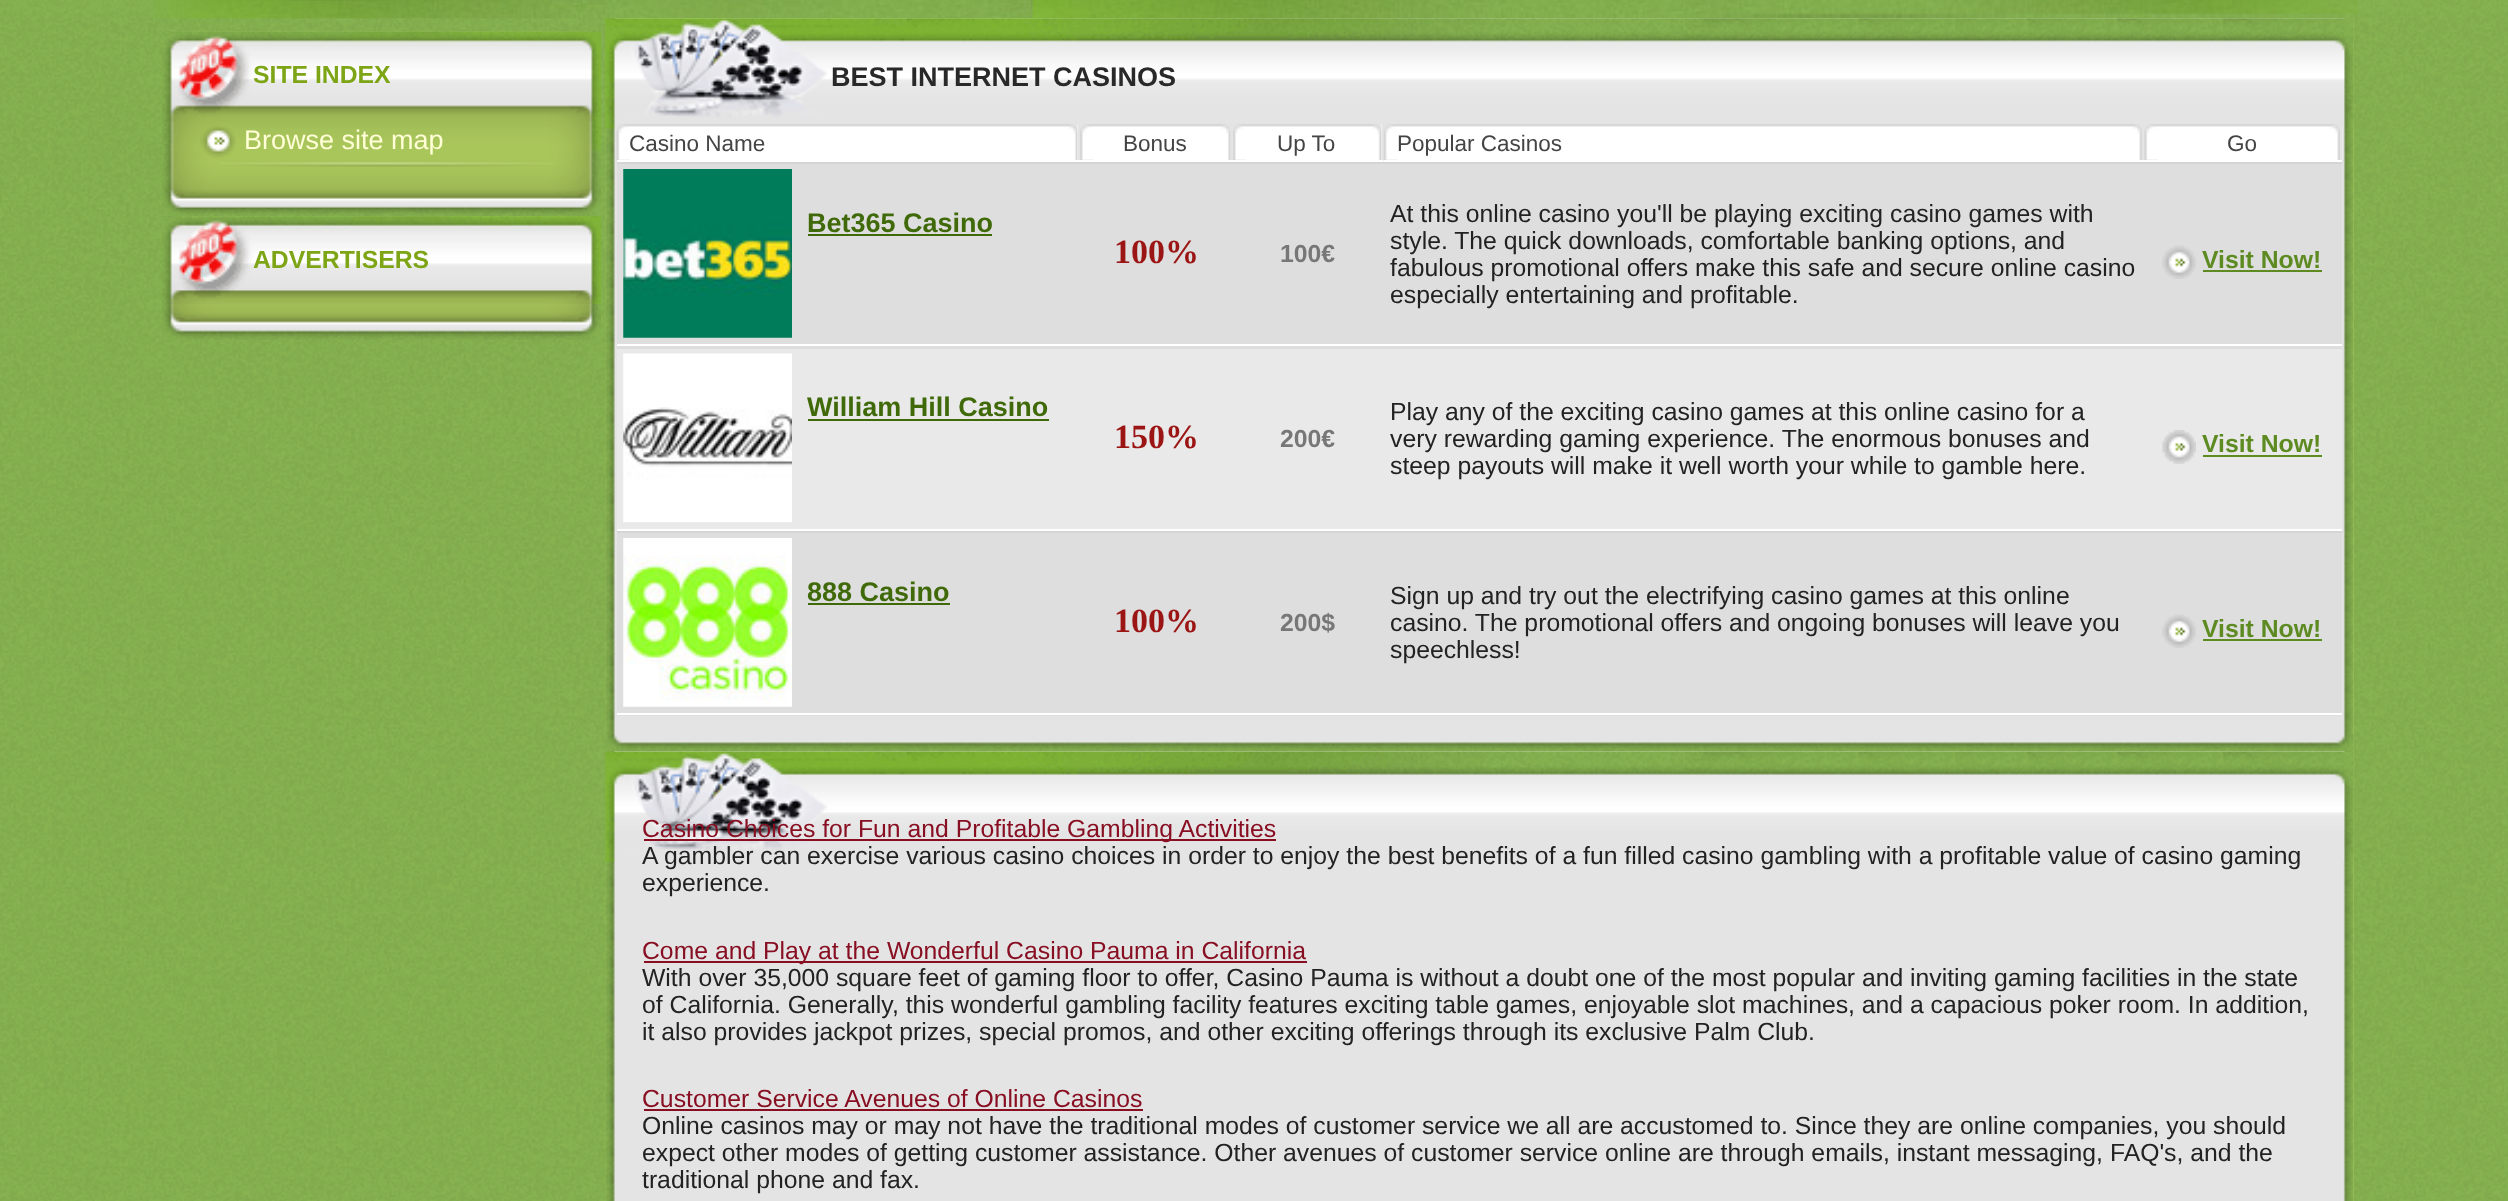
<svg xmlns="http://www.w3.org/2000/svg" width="2508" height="1201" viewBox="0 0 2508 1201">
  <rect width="100%" height="100%" fill="#ffffff"/>
  <image x="0" y="18" width="2508" height="1183" href="img1.png"/>
  <image x="0" y="0" width="2508" height="18" href="img2.png"/>
  <image x="153" y="0" width="2205" height="19" href="img3.png"/>
  <image x="162" y="31" width="439" height="186" href="img4.png"/>
  <image x="162" y="151" width="439" height="66" href="img5.png"/>
  <image x="162" y="31" width="439" height="113" href="img6.png"/>
  <text x="253" y="83" font-family="Liberation Sans" font-size="24.75" font-weight="bold" fill="#7da515">SITE INDEX</text>
  <image x="219" y="162" width="336" height="5" href="img7.png"/>
  <image x="200" y="126" width="36" height="32" href="img8.png"/>
  <text x="244" y="149" font-family="Liberation Sans" font-size="27" fill="#fffed6">Browse site map</text>
  <image x="162" y="216" width="439" height="124" href="img9.png"/>
  <image x="162" y="275" width="439" height="65" href="img10.png"/>
  <image x="162" y="216" width="439" height="88" href="img11.png"/>
  <text x="253" y="268" font-family="Liberation Sans" font-size="24.75" font-weight="bold" fill="#7da515">ADVERTISERS</text>
  <rect x="605" y="18" width="1749" height="1183" fill="#a9c65b"/>
  <image x="605" y="18" width="1749" height="734" href="img12.png"/>
  <image x="605" y="734" width="1749" height="18" href="img13.png"/>
  <image x="605" y="18" width="1749" height="111" href="img14.png"/>
  <text x="831" y="86" font-family="Liberation Sans" font-size="27" font-weight="bold" fill="#292929">BEST INTERNET CASINOS</text>
  <image x="616" y="124" width="14" height="38" href="img15.png"/>
  <rect x="617" y="160" width="463" height="2" fill="#ffffff"/>
  <rect x="1077" y="124" width="1" height="36" fill="#ffffff"/>
  <image x="630" y="124" width="448" height="36" href="img16.png"/>
  <text x="629" y="151" font-family="Liberation Sans" font-size="22.5" fill="#444444">Casino Name</text>
  <image x="1080" y="124" width="151" height="36" href="img17.png"/>
  <rect x="1080" y="160" width="304" height="2" fill="#ffffff"/>
  <image x="1093" y="124" width="138" height="36" href="img18.png"/>
  <text x="1123" y="151" font-family="Liberation Sans" font-size="22.5" fill="#444444">Bonus</text>
  <image x="1233" y="124" width="14" height="36" href="img19.png"/>
  <rect x="1381" y="124" width="1" height="36" fill="#ffffff"/>
  <image x="1246" y="124" width="136" height="36" href="img20.png"/>
  <text x="1277" y="151" font-family="Liberation Sans" font-size="22.5" fill="#444444">Up To</text>
  <image x="1383" y="124" width="762" height="38" href="img21.png"/>
  <rect x="2142" y="124" width="2" height="38" fill="#e4e4e4"/>
  <rect x="1384" y="160" width="760" height="2" fill="#ffffff"/>
  <image x="1397" y="124" width="745" height="36" href="img22.png"/>
  <text x="1397" y="151" font-family="Liberation Sans" font-size="22.5" fill="#444444">Popular Casinos</text>
  <image x="2144" y="124" width="199" height="38" href="img23.png"/>
  <rect x="2340" y="124" width="2" height="38" fill="#e4e4e4"/>
  <rect x="2144" y="160" width="198" height="2" fill="#ffffff"/>
  <image x="2158" y="124" width="182" height="36" href="img24.png"/>
  <text x="2227" y="151" font-family="Liberation Sans" font-size="22.5" fill="#444444">Go</text>
  <rect x="617" y="164" width="1725" height="183" fill="#dedede"/>
  <rect x="617" y="162" width="1725" height="2" fill="#d5d5d5"/>
  <rect x="617" y="344" width="1725" height="2" fill="#ffffff"/>
  <image x="623" y="169" width="169" height="169" href="img25.png"/>
  <text x="807" y="232" font-family="Liberation Sans" font-size="27" font-weight="bold" fill="#406a0a">Bet365 Casino</text>
  <rect x="808" y="234" width="184" height="2" fill="#406a0a"/>
  <text x="1390" y="222" font-family="Liberation Sans" font-size="24.75" fill="#222222">At this online casino you'll be playing exciting casino games with</text>
  <text x="1390" y="249" font-family="Liberation Sans" font-size="24.75" fill="#222222">style. The quick downloads, comfortable banking options, and</text>
  <text x="1390" y="276" font-family="Liberation Sans" font-size="24.75" fill="#222222">fabulous promotional offers make this safe and secure online casino</text>
  <text x="1390" y="303" font-family="Liberation Sans" font-size="24.75" fill="#222222">especially entertaining and profitable.</text>
  <text x="1114" y="263" font-family="Liberation Serif" font-size="34" font-weight="bold" fill="#9c1515">100%</text>
  <text x="1280" y="262" font-family="Liberation Sans" font-size="24.75" font-weight="bold" fill="#777777">100€</text>
  <image x="2162" y="245" width="34" height="34" href="img26.png"/>
  <text x="2202" y="268" font-family="Liberation Sans" font-size="24.75" font-weight="bold" fill="#5d8b22">Visit Now!</text>
  <rect x="2203" y="270" width="119" height="2" fill="#5d8b22"/>
  <rect x="617" y="349" width="1725" height="180" fill="#e9e9e9"/>
  <rect x="617" y="347" width="1725" height="2" fill="#dddddd"/>
  <rect x="617" y="529" width="1725" height="2" fill="#ffffff"/>
  <image x="623" y="353" width="169" height="170" href="img27.png"/>
  <text x="807" y="416" font-family="Liberation Sans" font-size="27" font-weight="bold" fill="#406a0a">William Hill Casino</text>
  <rect x="808" y="419" width="241" height="2" fill="#406a0a"/>
  <text x="1114" y="448" font-family="Liberation Serif" font-size="34" font-weight="bold" fill="#9c1515">150%</text>
  <text x="1280" y="447" font-family="Liberation Sans" font-size="24.75" font-weight="bold" fill="#777777">200€</text>
  <text x="1390" y="420" font-family="Liberation Sans" font-size="24.75" fill="#222222">Play any of the exciting casino games at this online casino for a</text>
  <text x="1390" y="447" font-family="Liberation Sans" font-size="24.75" fill="#222222">very rewarding gaming experience. The enormous bonuses and</text>
  <text x="1390" y="474" font-family="Liberation Sans" font-size="24.75" fill="#222222">steep payouts will make it well worth your while to gamble here.</text>
  <image x="2162" y="430" width="34" height="34" href="img28.png"/>
  <text x="2202" y="452" font-family="Liberation Sans" font-size="24.75" font-weight="bold" fill="#5d8b22">Visit Now!</text>
  <rect x="2203" y="455" width="119" height="2" fill="#5d8b22"/>
  <rect x="617" y="533" width="1725" height="183" fill="#dedede"/>
  <rect x="617" y="531" width="1725" height="2" fill="#d5d5d5"/>
  <rect x="617" y="713" width="1725" height="2" fill="#ffffff"/>
  <image x="623" y="538" width="169" height="169" href="img29.png"/>
  <text x="807" y="601" font-family="Liberation Sans" font-size="27" font-weight="bold" fill="#406a0a">888 Casino</text>
  <rect x="808" y="603" width="142" height="2" fill="#406a0a"/>
  <text x="1114" y="632" font-family="Liberation Serif" font-size="34" font-weight="bold" fill="#9c1515">100%</text>
  <text x="1280" y="631" font-family="Liberation Sans" font-size="24.75" font-weight="bold" fill="#777777">200$</text>
  <text x="1390" y="604" font-family="Liberation Sans" font-size="24.75" fill="#222222">Sign up and try out the electrifying casino games at this online</text>
  <text x="1390" y="631" font-family="Liberation Sans" font-size="24.75" fill="#222222">casino. The promotional offers and ongoing bonuses will leave you</text>
  <text x="1390" y="658" font-family="Liberation Sans" font-size="24.75" fill="#222222">speechless!</text>
  <image x="2162" y="614" width="34" height="34" href="img26.png"/>
  <text x="2202" y="637" font-family="Liberation Sans" font-size="24.75" font-weight="bold" fill="#5d8b22">Visit Now!</text>
  <rect x="2203" y="639" width="119" height="2" fill="#5d8b22"/>
  <image x="605" y="751" width="1749" height="450" href="img30.png"/>
  <image x="605" y="751" width="1749" height="111" href="img31.png"/>
  <rect x="644" y="839" width="632" height="2" fill="#880e22"/>
  <text x="642" y="837" font-family="Liberation Sans" font-size="24.75" fill="#880e22">Casino Choices for Fun and Profitable Gambling Activities</text>
  <text x="642" y="864" font-family="Liberation Sans" font-size="24.75" fill="#222222">A gambler can exercise various casino choices in order to enjoy the best benefits of a fun filled casino gambling with a profitable value of casino gaming</text>
  <text x="642" y="891" font-family="Liberation Sans" font-size="24.75" fill="#222222">experience.</text>
  <rect x="644" y="961" width="663" height="2" fill="#880e22"/>
  <text x="642" y="959" font-family="Liberation Sans" font-size="24.75" fill="#880e22">Come and Play at the Wonderful Casino Pauma in California</text>
  <text x="642" y="986" font-family="Liberation Sans" font-size="24.75" fill="#222222">With over 35,000 square feet of gaming floor to offer, Casino Pauma is without a doubt one of the most popular and inviting gaming facilities in the state</text>
  <text x="642" y="1013" font-family="Liberation Sans" font-size="24.75" fill="#222222">of California. Generally, this wonderful gambling facility features exciting table games, enjoyable slot machines, and a capacious poker room. In addition,</text>
  <text x="642" y="1040" font-family="Liberation Sans" font-size="24.75" fill="#222222">it also provides jackpot prizes, special promos, and other exciting offerings through its exclusive Palm Club.</text>
  <text x="642" y="1107" font-family="Liberation Sans" font-size="24.75" fill="#880e22">Customer Service Avenues of Online Casinos</text>
  <rect x="644" y="1109" width="499" height="2" fill="#880e22"/>
  <text x="642" y="1134" font-family="Liberation Sans" font-size="24.75" fill="#222222">Online casinos may or may not have the traditional modes of customer service we all are accustomed to. Since they are online companies, you should</text>
  <text x="642" y="1161" font-family="Liberation Sans" font-size="24.75" fill="#222222">expect other modes of getting customer assistance. Other avenues of customer service online are through emails, instant messaging, FAQ's, and the</text>
  <text x="642" y="1188" font-family="Liberation Sans" font-size="24.75" fill="#222222">traditional phone and fax.</text>
</svg>
